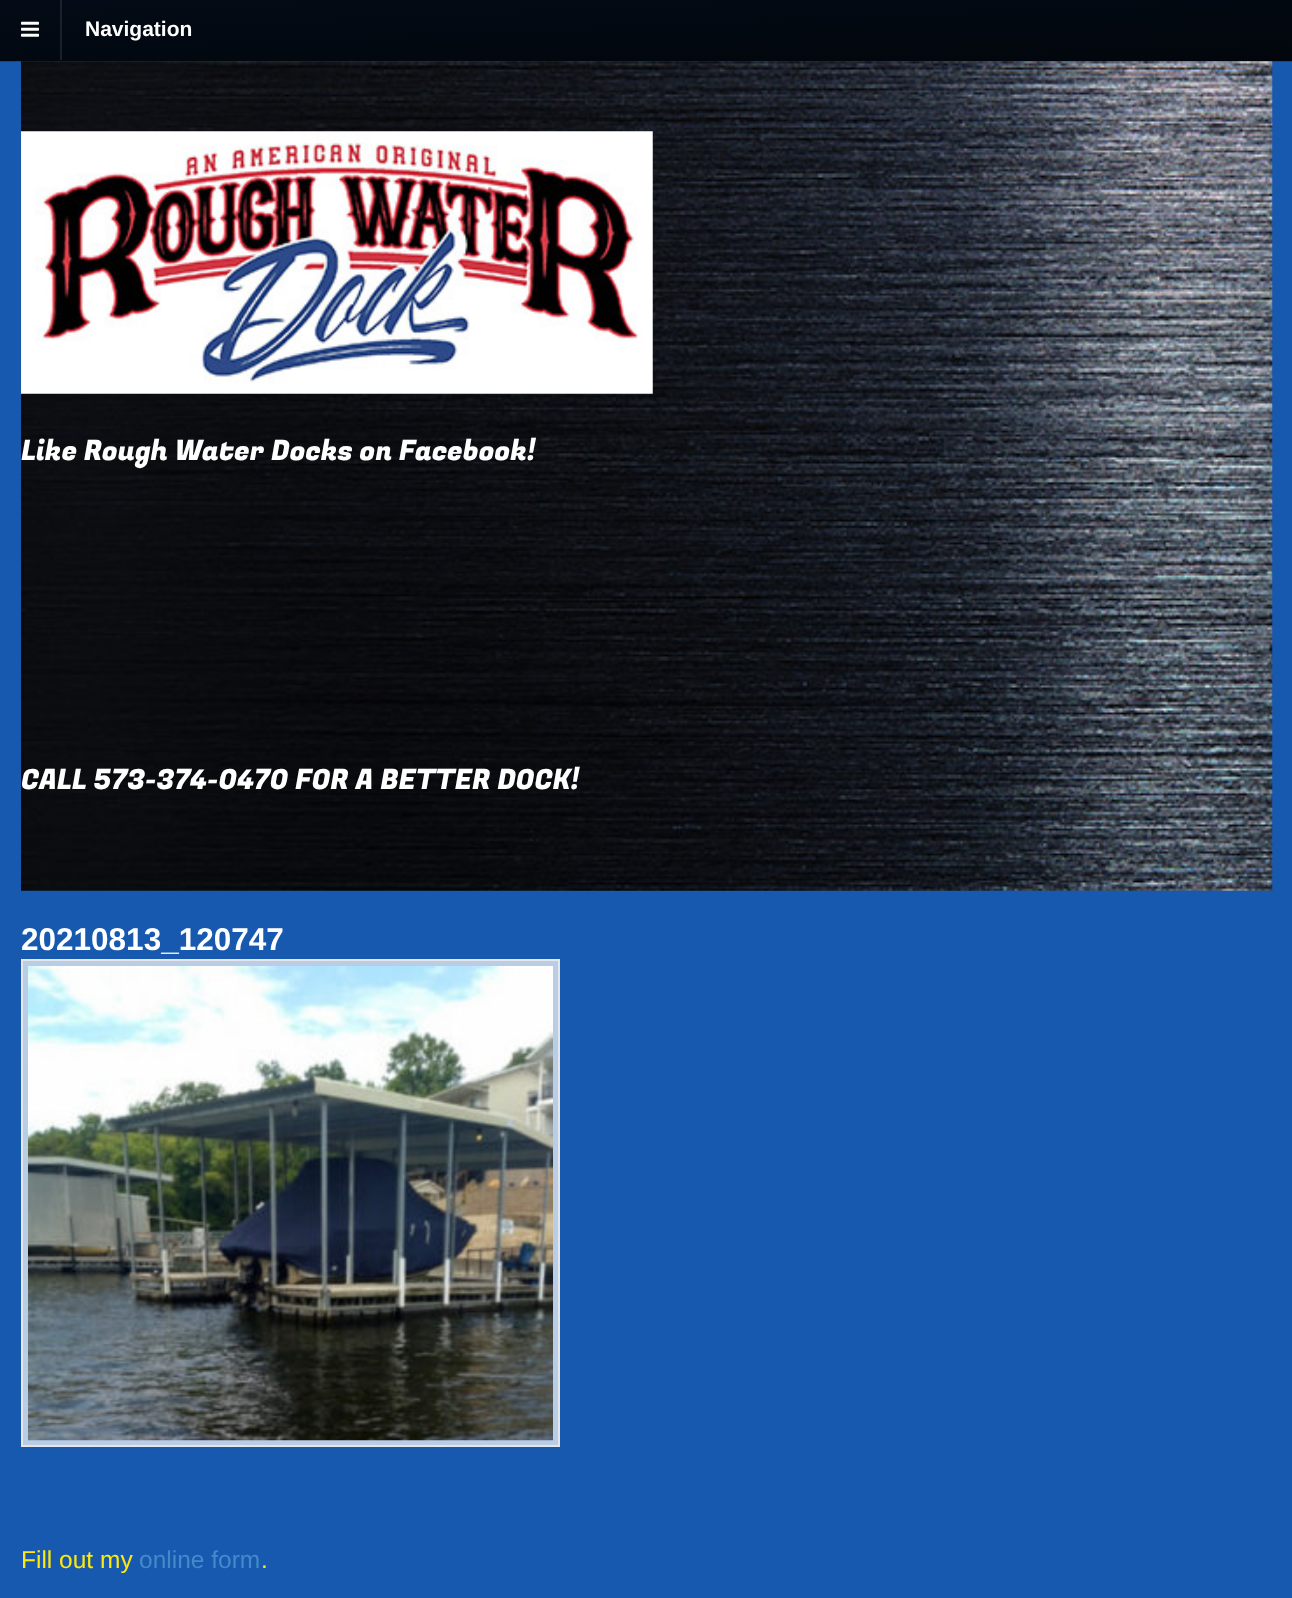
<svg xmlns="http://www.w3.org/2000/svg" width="1292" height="1598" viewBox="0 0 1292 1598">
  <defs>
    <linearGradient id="g1" gradientUnits="userSpaceOnUse" x1="644" y1="-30" x2="649" y2="89"><stop offset="0" stop-color="#030b16"/><stop offset="1" stop-color="#02060c"/></linearGradient>
    <linearGradient id="g2" gradientUnits="userSpaceOnUse" x1="644" y1="30" x2="649" y2="149"><stop offset="0" stop-color="#030b16"/><stop offset="1" stop-color="#02060c"/></linearGradient>
  </defs>
  <rect width="100%" height="100%" fill="#1859b0"/>
  <rect x="0" y="0" width="1292" height="60" fill="url(#g1)"/>
  <rect x="0" y="60" width="1292" height="1" fill="url(#g2)"/>
  <rect x="0" y="60" width="1292" height="2" fill="#000000" fill-opacity="0.2"/>
  <rect x="60" y="0" width="2" height="60" fill="#ffffff" fill-opacity="0.1"/>
  <image x="21" y="21" width="18" height="16" href="img1.png"/>
  <text x="85" y="36" font-family="Liberation Sans" font-size="21" font-weight="bold" fill="#ffffff">Navigation</text>
  <rect x="61" y="7" width="1" height="46" fill="#000000" fill-opacity="0.1"/>
  <image x="21" y="61" width="1252" height="830" href="img2.png"/>
  <image x="21" y="131" width="632" height="263" href="img3.png"/>
  <text x="21" y="460" font-family="Fugaz One" font-size="28" fill="#ffffff">Like Rough Water Docks on Facebook!</text>
  <text x="21" y="789" font-family="Fugaz One" font-size="28" fill="#ffffff">CALL 573-374-0470 FOR A BETTER DOCK!</text>
  <text x="21" y="950" font-family="Liberation Sans" font-size="31.5" font-weight="bold" fill="#ffffff">20210813_120747</text>
  <rect x="22" y="960" width="537" height="486" fill="#bacde7" stroke="#e6e6e6" stroke-width="2"/>
  <image x="28" y="966" width="525" height="475" href="img4.png"/>
  <text x="21" y="1568" font-family="Liberation Sans" font-size="24.5" fill="#ffe90b">Fill out my</text>
  <text x="139" y="1568" font-family="Liberation Sans" font-size="24.5" fill="#428bca">online form</text>
  <text x="261" y="1568" font-family="Liberation Sans" font-size="24.5" fill="#ffe90b">.</text>
</svg>
